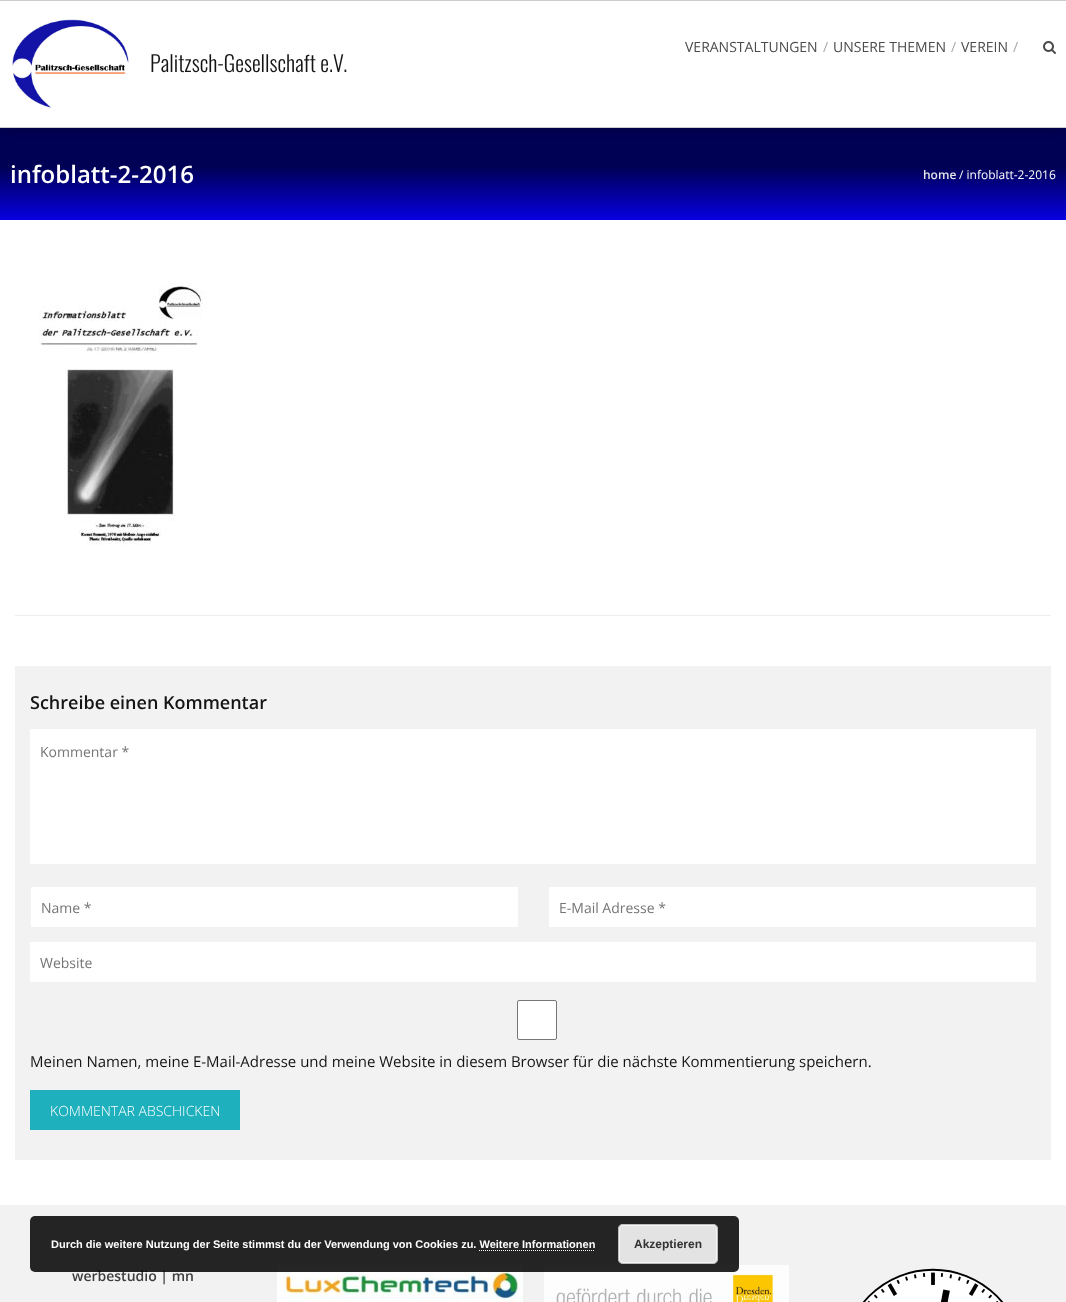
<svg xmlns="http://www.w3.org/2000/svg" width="1066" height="1302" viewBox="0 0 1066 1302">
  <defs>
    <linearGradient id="g1" gradientUnits="userSpaceOnUse" x1="533" y1="128" x2="533" y2="220"><stop offset="0" stop-color="#000055"/><stop offset="0.42" stop-color="#000055"/><stop offset="1" stop-color="#0700e0"/></linearGradient>
    <filter id="blur1" x="-50%" y="-200%" width="200%" height="500%"><feGaussianBlur stdDeviation="6.5"/></filter>
  </defs>
  <rect width="100%" height="100%" fill="#ffffff"/>
  <rect x="0" y="128" width="1066" height="92" fill="url(#g1)"/>
  <rect x="0" y="0" width="1066" height="128" fill="#000000" fill-opacity="0.3" filter="url(#blur1)"/>
  <rect x="0" y="1" width="1066" height="126" fill="#ffffff"/>
  <rect x="0" y="0" width="1066" height="1" fill="#cdcdcd"/>
  <rect x="0" y="127" width="1066" height="1" fill="#cdcdcd"/>
  <text x="685" y="52" font-family="Open Sans" font-size="14" fill="#4b4b4b">VERANSTALTUNGEN</text>
  <text x="823" y="52" font-family="Open Sans" font-size="14" fill="#aaaaaa">/</text>
  <text x="833" y="52" font-family="Open Sans" font-size="14" fill="#4b4b4b">UNSERE THEMEN</text>
  <text x="951" y="52" font-family="Open Sans" font-size="14" fill="#aaaaaa">/</text>
  <text x="961" y="52" font-family="Open Sans" font-size="14" fill="#4b4b4b">VEREIN</text>
  <text x="1013" y="52" font-family="Open Sans" font-size="14" fill="#aaaaaa">/</text>
  <image x="1043" y="41" width="13" height="13" href="img1.png"/>
  <image x="12" y="19" width="117" height="90" href="img2.png"/>
  <text x="150" y="72" font-family="Oswald" font-size="22" font-weight="300" fill="#141414">Palitzsch-Gesellschaft e.V.</text>
  <text x="10" y="183" font-family="Open Sans" font-size="24" font-weight="600" fill="#ffffff">infoblatt-2-2016</text>
  <text x="923" y="179" font-family="Open Sans" font-size="12" font-weight="600" fill="#e6e6e6">home</text>
  <text x="959" y="179" font-family="Open Sans" font-size="12" fill="#ffffff">/ infoblatt-2-2016</text>
  <rect x="15" y="615" width="1036" height="1" fill="#eeeeee"/>
  <image x="39" y="282" width="168" height="263" href="img3.png"/>
  <rect x="15" y="666" width="1036" height="494" fill="#f2f2f2"/>
  <text x="30" y="709" font-family="Open Sans" font-size="18" font-weight="600" fill="#141414">Schreibe einen Kommentar</text>
  <rect x="30" y="729" width="1006" height="135" rx="1" fill="#ffffff"/>
  <text x="40" y="757" font-family="Open Sans" font-size="14" fill="#757575">Kommentar *</text>
  <rect x="31" y="887" width="487" height="40" rx="1" fill="#ffffff"/>
  <text x="41" y="913" font-family="Open Sans" font-size="14" fill="#757575">Name *</text>
  <rect x="549" y="887" width="487" height="40" rx="1" fill="#ffffff"/>
  <text x="559" y="913" font-family="Open Sans" font-size="14" fill="#757575">E-Mail Adresse *</text>
  <rect x="30" y="942" width="1006" height="40" rx="1" fill="#ffffff"/>
  <text x="40" y="968" font-family="Open Sans" font-size="14" fill="#757575">Website</text>
  <rect x="517.5" y="1000.5" width="39" height="39" rx="1.5" fill="#ffffff" stroke="#767676"/>
  <text x="30" y="1067" font-family="Open Sans" font-size="15" fill="#141414">Meinen Namen, meine E-Mail-Adresse und meine Website in diesem Browser für die nächste Kommentierung speichern.</text>
  <rect x="30" y="1090" width="210" height="40" fill="#1eb0bc"/>
  <text x="50" y="1116" font-family="Open Sans" font-size="14" font-weight="300" fill="#ffffff">KOMMENTAR ABSCHICKEN</text>
  <rect x="0" y="1205" width="1066" height="97" fill="#f2f2f2"/>
  <text x="72" y="1281" font-family="Open Sans" font-size="14" font-weight="600" fill="#3d3d3d">werbestudio | mn</text>
  <image x="277" y="1265" width="246" height="37" href="img4.png"/>
  <image x="544" y="1265" width="245" height="37" href="img5.png"/>
  <image x="862" y="1268" width="142" height="34" href="img6.png"/>
  <rect x="30" y="1216" width="709" height="56" rx="5" fill="#000000" fill-opacity="0.85"/>
  <text x="51" y="1248" font-family="Liberation Sans" font-size="11" font-weight="bold" fill="#ffffff">Durch die weitere Nutzung der Seite stimmst du der Verwendung von Cookies zu. Weitere Informationen</text>
  <rect x="618" y="1224" width="100" height="40" rx="5" fill="#e3e3e3"/>
  <rect x="619.5" y="1225.5" width="97" height="37" rx="3.5" fill="none" stroke="#f6f6f6"/>
  <rect x="618.5" y="1224.5" width="99" height="39" rx="4.5" fill="none" stroke="#bbbbbb"/>
  <text x="634" y="1248" font-family="Liberation Sans" font-size="12" font-weight="bold" fill="#333333">Akzeptieren</text>
  <path d="M479 1250.5H595" fill="none" stroke="#ffffff" stroke-dasharray="1 1"/>
</svg>
